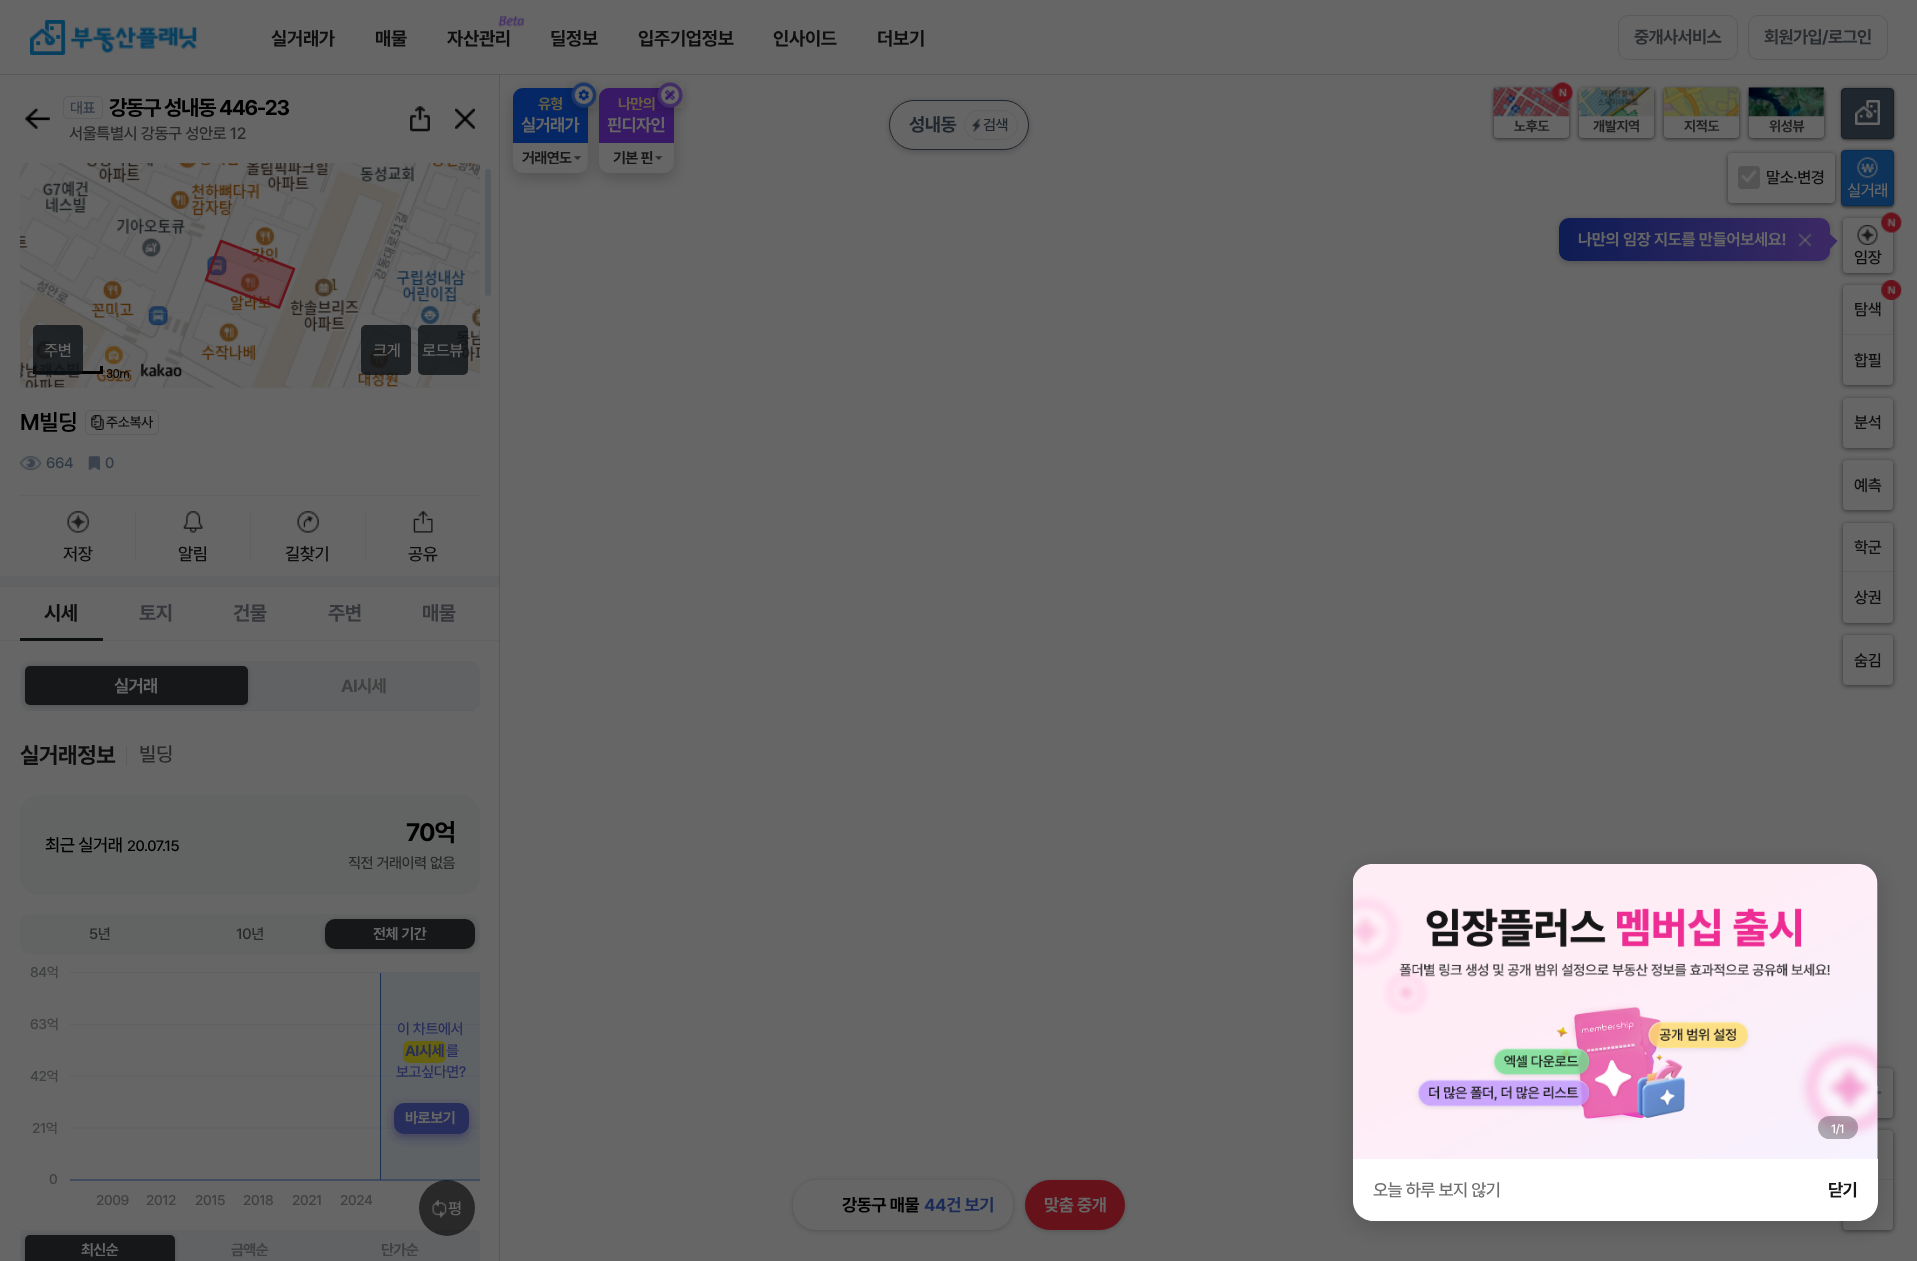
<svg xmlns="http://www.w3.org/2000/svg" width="1917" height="1261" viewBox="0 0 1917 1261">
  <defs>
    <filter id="blur1" x="-50%" y="-200%" width="200%" height="500%"><feGaussianBlur stdDeviation="7.5"/></filter>
    <clipPath id="clip1"><path d="M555 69H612V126H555ZM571 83H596V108H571Z" clip-rule="evenodd"/></clipPath>
    <filter id="blur2" x="-50%" y="-200%" width="200%" height="500%"><feGaussianBlur stdDeviation="5"/></filter>
    <clipPath id="clip2"><path d="M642 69H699V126H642ZM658 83H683V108H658Z" clip-rule="evenodd"/></clipPath>
    <filter id="blur3" x="-50%" y="-200%" width="200%" height="500%"><feGaussianBlur stdDeviation="2.5"/></filter>
    <filter id="blur4" x="-50%" y="-200%" width="200%" height="500%"><feGaussianBlur stdDeviation="4"/></filter>
    <filter id="blur5" x="-50%" y="-200%" width="200%" height="500%"><feGaussianBlur stdDeviation="2"/></filter>
    <filter id="blur6" x="-50%" y="-200%" width="200%" height="500%"><feGaussianBlur stdDeviation="1"/></filter>
    <linearGradient id="g1" gradientUnits="userSpaceOnUse" x1="1559" y1="239" x2="1830" y2="239"><stop offset="0" stop-color="#0e1c54"/><stop offset="1" stop-color="#3b2964"/></linearGradient>
    <filter id="blur7" x="-50%" y="-200%" width="200%" height="500%"><feGaussianBlur stdDeviation="12.5"/></filter>
  </defs>
  <rect width="100%" height="100%" fill="#666666"/>
  <rect x="513" y="93" width="75" height="85" rx="10" fill="#000000" fill-opacity="0.2" filter="url(#blur1)"/>
  <path d="M523 88H578C583.5 88 588 92.5 588 98V143H513V98C513 92.5 517.5 88 523 88Z" fill="#062766"/>
  <g clip-path="url(#clip1)">
    <rect x="571" y="85" width="25" height="25" fill="#000000" fill-opacity="0.2" filter="url(#blur2)"/>
  </g>
  <path d="M513 143H588V163C588 168.5 583.5 173 578 173H523C517.5 173 513 168.5 513 163Z" fill="#666666"/>
  <image x="574" y="156" width="7" height="4" href="img22.png"/>
  <image x="571" y="82" width="26" height="26" href="img23.png"/>
  <rect x="599" y="93" width="75" height="85" rx="10" fill="#000000" fill-opacity="0.2" filter="url(#blur1)"/>
  <path d="M609 88H664C669.5 88 674 92.5 674 98V143H599V98C599 92.5 603.5 88 609 88Z" fill="#371965"/>
  <g clip-path="url(#clip2)">
    <rect x="658" y="85" width="25" height="25" fill="#000000" fill-opacity="0.2" filter="url(#blur2)"/>
  </g>
  <rect x="0" y="74" width="1917" height="1" fill="#585858"/>
  <image x="30" y="20" width="167" height="35" href="img1.png"/>
  <text x="271" y="45" font-family="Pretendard" font-size="18.75" font-weight="bold" letter-spacing="-0.25" fill="#0e0e0e">실거래가</text>
  <text x="375" y="45" font-family="Pretendard" font-size="18.75" font-weight="bold" letter-spacing="-0.25" fill="#0e0e0e">매물</text>
  <image x="498" y="16" width="27" height="11" href="img2.png"/>
  <text x="447" y="45" font-family="Pretendard" font-size="18.75" font-weight="bold" letter-spacing="-0.25" fill="#0e0e0e">자산관리</text>
  <text x="550" y="45" font-family="Pretendard" font-size="18.75" font-weight="bold" letter-spacing="-0.25" fill="#0e0e0e">딜정보</text>
  <text x="638" y="45" font-family="Pretendard" font-size="18.75" font-weight="bold" letter-spacing="-0.25" fill="#0e0e0e">입주기업정보</text>
  <text x="773" y="45" font-family="Pretendard" font-size="18.75" font-weight="bold" letter-spacing="-0.25" fill="#0e0e0e">인사이드</text>
  <text x="877" y="45" font-family="Pretendard" font-size="18.75" font-weight="bold" letter-spacing="-0.25" fill="#0e0e0e">더보기</text>
  <rect x="1618.5" y="15.5" width="119" height="44" rx="9.5" fill="none" stroke="#585a5c"/>
  <text x="1634" y="43" font-family="Pretendard" font-size="17.5" font-weight="bold" letter-spacing="-0.6" fill="#2a2d30">중개사서비스</text>
  <rect x="1748.5" y="15.5" width="139" height="44" rx="9.5" fill="none" stroke="#585a5c"/>
  <text x="1764" y="43" font-family="Pretendard" font-size="17.5" font-weight="bold" letter-spacing="-0.6" fill="#2a2d30">회원가입/로그인</text>
  <image x="25" y="108" width="25" height="21" href="img3.png"/>
  <rect x="63.5" y="96.5" width="39" height="22" rx="4.5" fill="none" stroke="#5c5c5c"/>
  <text x="70" y="113" font-family="Pretendard" font-size="15" font-weight="500" letter-spacing="-0.4" fill="#303a45">대표</text>
  <text x="109" y="115" font-family="Pretendard" font-size="21.25" font-weight="bold" letter-spacing="-1.25" fill="#000000">강동구 성내동 446-23</text>
  <text x="69" y="139" font-family="Pretendard" font-size="16.25" font-weight="500" letter-spacing="-0.4" fill="#292929">서울특별시 강동구 성안로 12</text>
  <image x="410" y="106" width="20" height="26" href="img4.png"/>
  <image x="455" y="108" width="20" height="21" href="img5.png"/>
  <rect x="485" y="169" width="6" height="127" rx="3" fill="#585b5e"/>
  <rect x="0" y="576" width="500" height="10" fill="#616263"/>
  <image x="20" y="163" width="460" height="225" href="img6.png"/>
  <image x="20" y="312" width="117" height="76" href="img10.png"/>
  <image x="136" y="312" width="321" height="76" href="img11.png"/>
  <image x="20" y="163" width="117" height="150" href="img7.png"/>
  <image x="456" y="312" width="24" height="76" href="img12.png"/>
  <image x="136" y="163" width="321" height="150" href="img8.png"/>
  <image x="456" y="163" width="24" height="150" href="img9.png"/>
  <path d="M221 241L294 269L279 308L206 280Z" fill="#66121a" fill-opacity="0.3" fill-rule="evenodd"/>
  <path d="M221 241L294 269L279 307.5L206 280Z" fill="none" stroke="#66121a" stroke-width="2.5" stroke-linecap="round" stroke-linejoin="round"/>
  <rect x="100" y="366" width="3" height="8" fill="#000000"/>
  <rect x="33" y="371" width="70" height="3" fill="#000000"/>
  <rect x="33" y="366" width="3" height="8" fill="#000000"/>
  <rect x="33" y="325" width="50" height="50" rx="5" fill="#0e1317" fill-opacity="0.8"/>
  <text x="44" y="356" font-family="Pretendard" font-size="16.25" font-weight="500" letter-spacing="-0.4" fill="#666666">주변</text>
  <rect x="361" y="325" width="50" height="50" rx="5" fill="#0e1317" fill-opacity="0.8"/>
  <text x="373" y="356" font-family="Pretendard" font-size="16.25" font-weight="500" letter-spacing="-0.4" fill="#666666">크게</text>
  <rect x="418" y="325" width="50" height="50" rx="5" fill="#0e1317" fill-opacity="0.8"/>
  <text x="422" y="356" font-family="Pretendard" font-size="16.25" font-weight="500" letter-spacing="-0.4" fill="#666666">로드뷰</text>
  <text x="106" y="378" font-family="Dotum" font-size="12" font-weight="bold" letter-spacing="-0.4" fill="#000000">30m</text>
  <image x="141" y="363" width="41" height="14" href="img13.png"/>
  <text x="20" y="430" font-family="Pretendard" font-size="22.5" font-weight="600" letter-spacing="-0.4" fill="#000000">M빌딩</text>
  <rect x="85.5" y="410.5" width="73" height="24" rx="4.5" fill="none" stroke="#5c5c5c"/>
  <image x="91" y="415" width="13" height="15" href="img14.png"/>
  <text x="106" y="427" font-family="Pretendard" font-size="14" font-weight="500" letter-spacing="-0.4" fill="#0e0e0e">주소복사</text>
  <image x="20" y="456" width="22" height="14" href="img15.png"/>
  <text x="46" y="468" font-family="Pretendard" font-size="15" font-weight="500" letter-spacing="-0.4" fill="#303a45">664</text>
  <image x="88" y="456" width="12" height="14" href="img16.png"/>
  <text x="105" y="468" font-family="Pretendard" font-size="15" font-weight="500" letter-spacing="-0.4" fill="#303a45">0</text>
  <rect x="20" y="495" width="460" height="1" fill="#616161"/>
  <image x="67" y="511" width="22" height="22" href="img17.png"/>
  <text x="63" y="560" font-family="Pretendard" font-size="17.5" font-weight="500" letter-spacing="-0.4" fill="#0e0e0e">저장</text>
  <rect x="135" y="511" width="1" height="49" fill="#616161"/>
  <image x="183" y="511" width="20" height="22" href="img18.png"/>
  <text x="178" y="560" font-family="Pretendard" font-size="17.5" font-weight="500" letter-spacing="-0.4" fill="#0e0e0e">알림</text>
  <rect x="250" y="511" width="1" height="49" fill="#616161"/>
  <image x="297" y="511" width="22" height="22" href="img19.png"/>
  <text x="285" y="560" font-family="Pretendard" font-size="17.5" font-weight="500" letter-spacing="-0.4" fill="#0e0e0e">길찾기</text>
  <rect x="365" y="511" width="1" height="49" fill="#616161"/>
  <image x="413" y="511" width="20" height="22" href="img20.png"/>
  <text x="408" y="560" font-family="Pretendard" font-size="17.5" font-weight="500" letter-spacing="-0.4" fill="#0e0e0e">공유</text>
  <rect x="0" y="586" width="500" height="1" fill="#616161"/>
  <rect x="0" y="640" width="500" height="1" fill="#616161"/>
  <text x="44" y="620" font-family="Pretendard" font-size="20" font-weight="bold" letter-spacing="-0.6" fill="#0e0e0e">시세</text>
  <rect x="20" y="638" width="83" height="3" fill="#0d1011"/>
  <text x="139" y="620" font-family="Pretendard" font-size="20" font-weight="bold" letter-spacing="-0.6" fill="#36383c">토지</text>
  <text x="233" y="620" font-family="Pretendard" font-size="20" font-weight="bold" letter-spacing="-0.6" fill="#36383c">건물</text>
  <text x="328" y="620" font-family="Pretendard" font-size="20" font-weight="bold" letter-spacing="-0.6" fill="#36383c">주변</text>
  <text x="422" y="620" font-family="Pretendard" font-size="20" font-weight="bold" letter-spacing="-0.6" fill="#36383c">매물</text>
  <rect x="20" y="661" width="460" height="50" rx="10" fill="#616263"/>
  <rect x="25" y="710" width="450" height="1" fill="#5f5f5f"/>
  <rect x="25" y="668" width="223" height="38" rx="5" fill="#000000" fill-opacity="0.2" filter="url(#blur3)"/>
  <rect x="25" y="666" width="223" height="39" rx="5" fill="#151719"/>
  <text x="114" y="692" font-family="Pretendard" font-size="17.5" font-weight="bold" letter-spacing="-0.6" fill="#666666">실거래</text>
  <text x="341" y="692" font-family="Pretendard" font-size="17.5" font-weight="bold" letter-spacing="-0.6" fill="#3f4040">AI시세</text>
  <text x="20" y="763" font-family="Pretendard" font-size="22.5" font-weight="bold" letter-spacing="-0.4" fill="#0e0e0e">실거래정보</text>
  <rect x="126" y="746" width="1" height="20" fill="#5c5c5c"/>
  <text x="139" y="761" font-family="Pretendard" font-size="20" font-weight="500" letter-spacing="-0.4" fill="#292929">빌딩</text>
  <rect x="20" y="795" width="460" height="100" rx="20" fill="#626363"/>
  <text x="45" y="851" font-family="Pretendard" font-size="17.5" font-weight="500" letter-spacing="-0.4" fill="#000000">최근 실거래</text>
  <text x="127" y="851" font-family="Pretendard" font-size="15" font-weight="500" letter-spacing="-0.4" fill="#000000">20.07.15</text>
  <text x="406" y="841" font-family="Pretendard" font-size="25" font-weight="bold" letter-spacing="-1" fill="#000000">70억</text>
  <text x="348" y="868" font-family="Pretendard" font-size="15" font-weight="500" letter-spacing="-0.4" fill="#292929">직전 거래이력 없음</text>
  <rect x="20" y="914" width="460" height="40" rx="10" fill="#626363"/>
  <text x="89" y="939" font-family="Pretendard" font-size="15" font-weight="500" letter-spacing="-0.4" fill="#292929">5년</text>
  <text x="236" y="939" font-family="Pretendard" font-size="15" font-weight="500" letter-spacing="-0.4" fill="#292929">10년</text>
  <rect x="325" y="920" width="150" height="30" rx="10" fill="#000000" fill-opacity="0.2" filter="url(#blur3)"/>
  <rect x="325" y="919" width="150" height="30" rx="10" fill="#151719"/>
  <text x="373" y="939" font-family="Pretendard" font-size="15" font-weight="bold" letter-spacing="-0.4" fill="#666666">전체 기간</text>
  <text x="30" y="977" font-family="Pretendard" font-size="14" font-weight="500" letter-spacing="-0.4" fill="#3f4040">84억</text>
  <rect x="70" y="972" width="410" height="1" fill="#5e6164"/>
  <text x="30" y="1029" font-family="Pretendard" font-size="14" font-weight="500" letter-spacing="-0.4" fill="#3f4040">63억</text>
  <rect x="70" y="1024" width="410" height="1" fill="#5e6164"/>
  <text x="30" y="1081" font-family="Pretendard" font-size="14" font-weight="500" letter-spacing="-0.4" fill="#3f4040">42억</text>
  <path d="M70 1076H480" fill="none" stroke="#5e6164" stroke-width="1.2"/>
  <text x="32" y="1133" font-family="Pretendard" font-size="14" font-weight="500" letter-spacing="-0.4" fill="#3f4040">21억</text>
  <path d="M70 1128H480" fill="none" stroke="#5e6164" stroke-width="1.2"/>
  <text x="49" y="1184" font-family="Pretendard" font-size="14" font-weight="500" letter-spacing="-0.4" fill="#3f4040">0</text>
  <path d="M70 1180H480" fill="none" stroke="#183256" stroke-width="1.2"/>
  <text x="96" y="1205" font-family="Pretendard" font-size="14" font-weight="500" letter-spacing="-0.4" fill="#3f4040">2009</text>
  <text x="146" y="1205" font-family="Pretendard" font-size="14" font-weight="500" letter-spacing="-0.4" fill="#3f4040">2012</text>
  <text x="195" y="1205" font-family="Pretendard" font-size="14" font-weight="500" letter-spacing="-0.4" fill="#3f4040">2015</text>
  <text x="243" y="1205" font-family="Pretendard" font-size="14" font-weight="500" letter-spacing="-0.4" fill="#3f4040">2018</text>
  <text x="292" y="1205" font-family="Pretendard" font-size="14" font-weight="500" letter-spacing="-0.4" fill="#3f4040">2021</text>
  <text x="340" y="1205" font-family="Pretendard" font-size="14" font-weight="500" letter-spacing="-0.4" fill="#3f4040">2024</text>
  <rect x="381" y="973" width="99" height="206" fill="#2c4466" fill-opacity="0.1"/>
  <rect x="380" y="973" width="1" height="207" fill="#183256"/>
  <text x="397" y="1034" font-family="Pretendard" font-size="15" font-weight="500" letter-spacing="-0.4" fill="#282e5b">이 차트에서</text>
  <rect x="403" y="1041" width="43" height="22" rx="6" fill="#666110"/>
  <text x="405" y="1056" font-family="Pretendard" font-size="15" font-weight="bold" letter-spacing="-0.4" fill="#282e5b">AI시세</text>
  <text x="446" y="1056" font-family="Pretendard" font-size="15" font-weight="500" letter-spacing="-0.4" fill="#282e5b">를</text>
  <text x="396" y="1077" font-family="Pretendard" font-size="15" font-weight="500" letter-spacing="-0.4" fill="#282e5b">보고싶다면?</text>
  <rect x="393" y="1105" width="77" height="34" rx="11" fill="#282e5b" fill-opacity="0.5" filter="url(#blur4)"/>
  <rect x="394" y="1103" width="75" height="31" rx="10" fill="#282e5b"/>
  <text x="405" y="1123" font-family="Pretendard" font-size="15" font-weight="bold" letter-spacing="-0.4" fill="#666666">바로보기</text>
  <path d="M25 1230H475C478 1230 480 1232 480 1235V1261H20V1235C20 1232 22 1230 25 1230Z" fill="#616263"/>
  <rect x="25" y="1236" width="150" height="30" rx="5" fill="#000000" fill-opacity="0.2" filter="url(#blur3)"/>
  <rect x="25" y="1235" width="150" height="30" rx="5" fill="#151719"/>
  <text x="81" y="1255" font-family="Pretendard" font-size="15" font-weight="bold" letter-spacing="-0.6" fill="#666666">최신순</text>
  <text x="231" y="1255" font-family="Pretendard" font-size="15" font-weight="bold" letter-spacing="-0.6" fill="#3f4040">금액순</text>
  <text x="381" y="1255" font-family="Pretendard" font-size="15" font-weight="bold" letter-spacing="-0.6" fill="#3f4040">단가순</text>
  <circle cx="447" cy="1208" r="28" fill="#000000" fill-opacity="0.6"/>
  <image x="432" y="1200" width="15" height="18" href="img21.png"/>
  <text x="448" y="1214" font-family="Pretendard" font-size="16.25" font-weight="500" letter-spacing="-0.4" fill="#666666">평</text>
  <rect x="499" y="75" width="1" height="1186" fill="#000000" fill-opacity="0.13"/>
  <text x="538" y="109" font-family="Pretendard" font-size="15" font-weight="bold" letter-spacing="-0.6" fill="#665e40">유형</text>
  <text x="521" y="131" font-family="Pretendard" font-size="17.5" font-weight="bold" letter-spacing="-0.6" fill="#666666">실거래가</text>
  <text x="522" y="163" font-family="Pretendard" font-size="15" font-weight="bold" letter-spacing="-0.6" fill="#171717">거래연도</text>
  <text x="618" y="109" font-family="Pretendard" font-size="15" font-weight="bold" letter-spacing="-0.6" fill="#665e40">나만의</text>
  <text x="607" y="131" font-family="Pretendard" font-size="17.5" font-weight="bold" letter-spacing="-0.6" fill="#666666">핀디자인</text>
  <path d="M599 143H674V163C674 168.5 669.5 173 664 173H609C603.5 173 599 168.5 599 163Z" fill="#666666"/>
  <text x="613" y="163" font-family="Pretendard" font-size="15" font-weight="bold" letter-spacing="-0.6" fill="#171717">기본 핀</text>
  <image x="655" y="156" width="8" height="4" href="img24.png"/>
  <image x="657" y="82" width="26" height="26" href="img25.png"/>
  <rect x="888" y="100" width="142" height="53" rx="26.5" fill="#000000" fill-opacity="0.15" filter="url(#blur3)"/>
  <rect x="889.5" y="100.5" width="139" height="49" rx="24.5" fill="#666666" stroke="#20262e"/>
  <text x="909" y="131" font-family="Pretendard" font-size="18.75" font-weight="bold" letter-spacing="-0.4" fill="#20262e">성내동</text>
  <rect x="964.5" y="110.5" width="53" height="29" rx="14.5" fill="none" stroke="#5f5f5f"/>
  <image x="972" y="118" width="9" height="15" href="img26.png"/>
  <text x="983" y="130" font-family="Pretendard" font-size="15" font-weight="500" letter-spacing="-0.4" fill="#20262e">검색</text>
  <rect x="1494" y="89" width="75" height="50" rx="4" fill="#000000" fill-opacity="0.6" filter="url(#blur5)"/>
  <rect x="1494" y="88" width="75" height="50" rx="4" fill="#666666"/>
  <image x="1493" y="87" width="76" height="30" href="img28.png"/>
  <image x="1552" y="82" width="21" height="21" href="img27.png"/>
  <text x="1514" y="131" font-family="Pretendard" font-size="14" font-weight="bold" letter-spacing="-0.4" fill="#212121">노후도</text>
  <rect x="1579" y="89" width="75" height="50" rx="4" fill="#000000" fill-opacity="0.6" filter="url(#blur5)"/>
  <rect x="1579" y="88" width="75" height="50" rx="4" fill="#666666"/>
  <image x="1578" y="87" width="76" height="30" href="img29.png"/>
  <text x="1593" y="131" font-family="Pretendard" font-size="14" font-weight="bold" letter-spacing="-0.4" fill="#212121">개발지역</text>
  <rect x="1664" y="89" width="75" height="50" rx="4" fill="#000000" fill-opacity="0.6" filter="url(#blur5)"/>
  <rect x="1664" y="88" width="75" height="50" rx="4" fill="#666666"/>
  <image x="1663" y="87" width="76" height="30" href="img30.png"/>
  <text x="1684" y="131" font-family="Pretendard" font-size="14" font-weight="bold" letter-spacing="-0.4" fill="#212121">지적도</text>
  <rect x="1749" y="89" width="75" height="50" rx="4" fill="#000000" fill-opacity="0.6" filter="url(#blur5)"/>
  <rect x="1749" y="88" width="75" height="50" rx="4" fill="#666666"/>
  <image x="1748" y="87" width="76" height="30" href="img31.png"/>
  <text x="1769" y="131" font-family="Pretendard" font-size="14" font-weight="bold" letter-spacing="-0.4" fill="#212121">위성뷰</text>
  <rect x="1843" y="89" width="50" height="50" rx="4" fill="#000000" fill-opacity="0.5" filter="url(#blur3)"/>
  <rect x="1841" y="89" width="53" height="51" rx="4" fill="#000000" fill-opacity="0.3" filter="url(#blur6)"/>
  <rect x="1841.5" y="88.5" width="52" height="50" rx="3.5" fill="#20262e" stroke="#191f27"/>
  <image x="1855" y="100" width="25" height="25" href="img32.png"/>
  <rect x="1843" y="151" width="50" height="55" rx="4" fill="#000000" fill-opacity="0.5" filter="url(#blur3)"/>
  <rect x="1841" y="151" width="53" height="57" rx="4" fill="#000000" fill-opacity="0.3" filter="url(#blur6)"/>
  <rect x="1841.5" y="150.5" width="52" height="55" rx="3.5" fill="#0e335a" stroke="#082d53"/>
  <rect x="1728" y="154" width="107" height="50" rx="4" fill="#000000" fill-opacity="0.5" filter="url(#blur3)"/>
  <rect x="1728" y="153" width="107" height="50" rx="4" fill="#666666"/>
  <rect x="1738" y="166" width="22" height="23" rx="4" fill="#535353"/>
  <image x="1741" y="170" width="16" height="13" href="img33.png"/>
  <text x="1766" y="183" font-family="Pretendard" font-size="16.25" font-weight="500" letter-spacing="-0.4" fill="#0e0e0e">말소·변경</text>
  <image x="1857" y="157" width="21" height="21" href="img34.png"/>
  <text x="1847" y="196" font-family="Pretendard" font-size="16.25" font-weight="500" letter-spacing="-0.4" fill="#666666">실거래</text>
  <rect x="1843" y="219" width="50" height="55" rx="4" fill="#000000" fill-opacity="0.5" filter="url(#blur3)"/>
  <rect x="1843" y="218" width="50" height="55" rx="4" fill="#666666"/>
  <rect x="1558" y="218" width="273" height="46" rx="11" fill="#000000" fill-opacity="0.15" filter="url(#blur3)"/>
  <rect x="1559" y="218" width="271" height="43" rx="10" fill="url(#g1)"/>
  <text x="1578" y="245" font-family="Pretendard" font-size="16.25" font-weight="bold" letter-spacing="-0.25" fill="#666666">나만의 임장 지도를 만들어보세요!</text>
  <image x="1798" y="233" width="14" height="14" href="img35.png"/>
  <path d="M1830 249V234L1837.5 241Z" fill="#3b2964"/>
  <image x="1881" y="212" width="21" height="21" href="img36.png"/>
  <image x="1857" y="225" width="21" height="20" href="img37.png"/>
  <text x="1854" y="263" font-family="Pretendard" font-size="16.25" font-weight="500" letter-spacing="-0.4" fill="#0e0e0e">임장</text>
  <rect x="1843" y="286" width="50" height="100" rx="4" fill="#000000" fill-opacity="0.5" filter="url(#blur3)"/>
  <rect x="1843" y="285" width="50" height="100" rx="4" fill="#666666"/>
  <rect x="1843" y="334" width="50" height="1" fill="#5f5f5f"/>
  <image x="1881" y="280" width="21" height="20" href="img38.png"/>
  <text x="1854" y="315" font-family="Pretendard" font-size="16.25" font-weight="500" letter-spacing="-0.4" fill="#0e0e0e">탐색</text>
  <text x="1854" y="366" font-family="Pretendard" font-size="16.25" font-weight="500" letter-spacing="-0.4" fill="#0e0e0e">합필</text>
  <rect x="1843" y="399" width="50" height="50" rx="4" fill="#000000" fill-opacity="0.5" filter="url(#blur3)"/>
  <rect x="1843" y="398" width="50" height="50" rx="4" fill="#666666"/>
  <text x="1854" y="428" font-family="Pretendard" font-size="16.25" font-weight="500" letter-spacing="-0.4" fill="#0e0e0e">분석</text>
  <rect x="1843" y="461" width="50" height="50" rx="4" fill="#000000" fill-opacity="0.5" filter="url(#blur3)"/>
  <rect x="1843" y="460" width="50" height="50" rx="4" fill="#666666"/>
  <text x="1854" y="491" font-family="Pretendard" font-size="16.25" font-weight="500" letter-spacing="-0.4" fill="#0e0e0e">예측</text>
  <rect x="1843" y="524" width="50" height="100" rx="4" fill="#000000" fill-opacity="0.5" filter="url(#blur3)"/>
  <rect x="1843" y="523" width="50" height="100" rx="4" fill="#666666"/>
  <rect x="1843" y="571" width="50" height="1" fill="#5f5f5f"/>
  <text x="1854" y="553" font-family="Pretendard" font-size="16.25" font-weight="500" letter-spacing="-0.4" fill="#0e0e0e">학군</text>
  <text x="1854" y="603" font-family="Pretendard" font-size="16.25" font-weight="500" letter-spacing="-0.4" fill="#0e0e0e">상권</text>
  <rect x="1843" y="636" width="50" height="50" rx="4" fill="#000000" fill-opacity="0.5" filter="url(#blur3)"/>
  <rect x="1843" y="635" width="50" height="50" rx="4" fill="#666666"/>
  <text x="1854" y="666" font-family="Pretendard" font-size="16.25" font-weight="500" letter-spacing="-0.4" fill="#0e0e0e">숨김</text>
  <rect x="793" y="1181" width="220" height="50" rx="23" fill="#000000" fill-opacity="0.2" filter="url(#blur3)"/>
  <rect x="793" y="1180" width="220" height="50" rx="23" fill="#666666"/>
  <text x="842" y="1211" font-family="Pretendard" font-size="17.5" font-weight="bold" letter-spacing="-0.4" fill="#000000">강동구 매물</text>
  <text x="924" y="1211" font-family="Pretendard" font-size="17.5" font-weight="bold" letter-spacing="-0.4" fill="#192b56">44건 보기</text>
  <rect x="1025" y="1181" width="100" height="50" rx="25" fill="#000000" fill-opacity="0.2" filter="url(#blur3)"/>
  <rect x="1025" y="1180" width="100" height="50" rx="25" fill="#66121a"/>
  <text x="1044" y="1211" font-family="Pretendard" font-size="17.5" font-weight="bold" letter-spacing="-0.4" fill="#666666">맞춤 중개</text>
  <rect x="1843" y="1069" width="50" height="50" rx="4" fill="#000000" fill-opacity="0.5" filter="url(#blur3)"/>
  <rect x="1843" y="1068" width="50" height="50" rx="4" fill="#666666"/>
  <image x="1877" y="1087" width="5" height="11" href="img39.png"/>
  <rect x="1843" y="1131" width="50" height="100" rx="4" fill="#000000" fill-opacity="0.5" filter="url(#blur3)"/>
  <rect x="1843" y="1130" width="50" height="100" rx="4" fill="#666666"/>
  <rect x="1878" y="1179" width="15" height="1" fill="#5f5f5f"/>
  <rect x="1353" y="869" width="525" height="357" rx="20" fill="#000000" fill-opacity="0.16" filter="url(#blur7)"/>
  <image x="1353" y="864" width="525" height="295" href="img40.png"/>
  <rect x="1818" y="1116" width="40" height="23" rx="11.5" fill="#000000" fill-opacity="0.3"/>
  <text x="1831" y="1133" font-family="Pretendard" font-size="12" font-weight="500" letter-spacing="-0.6" fill="#ffffff">1/1</text>
  <path d="M1353 1159H1878V1201C1878 1212 1869 1221 1858 1221H1373C1362 1221 1353 1212 1353 1201Z" fill="#ffffff"/>
  <text x="1373" y="1196" font-family="Pretendard" font-size="17.5" font-weight="500" letter-spacing="-0.6" fill="#6f6f6f">오늘 하루 보지 않기</text>
  <text x="1828" y="1196" font-family="Pretendard" font-size="17.5" font-weight="bold" letter-spacing="-0.6" fill="#171717">닫기</text>
</svg>
